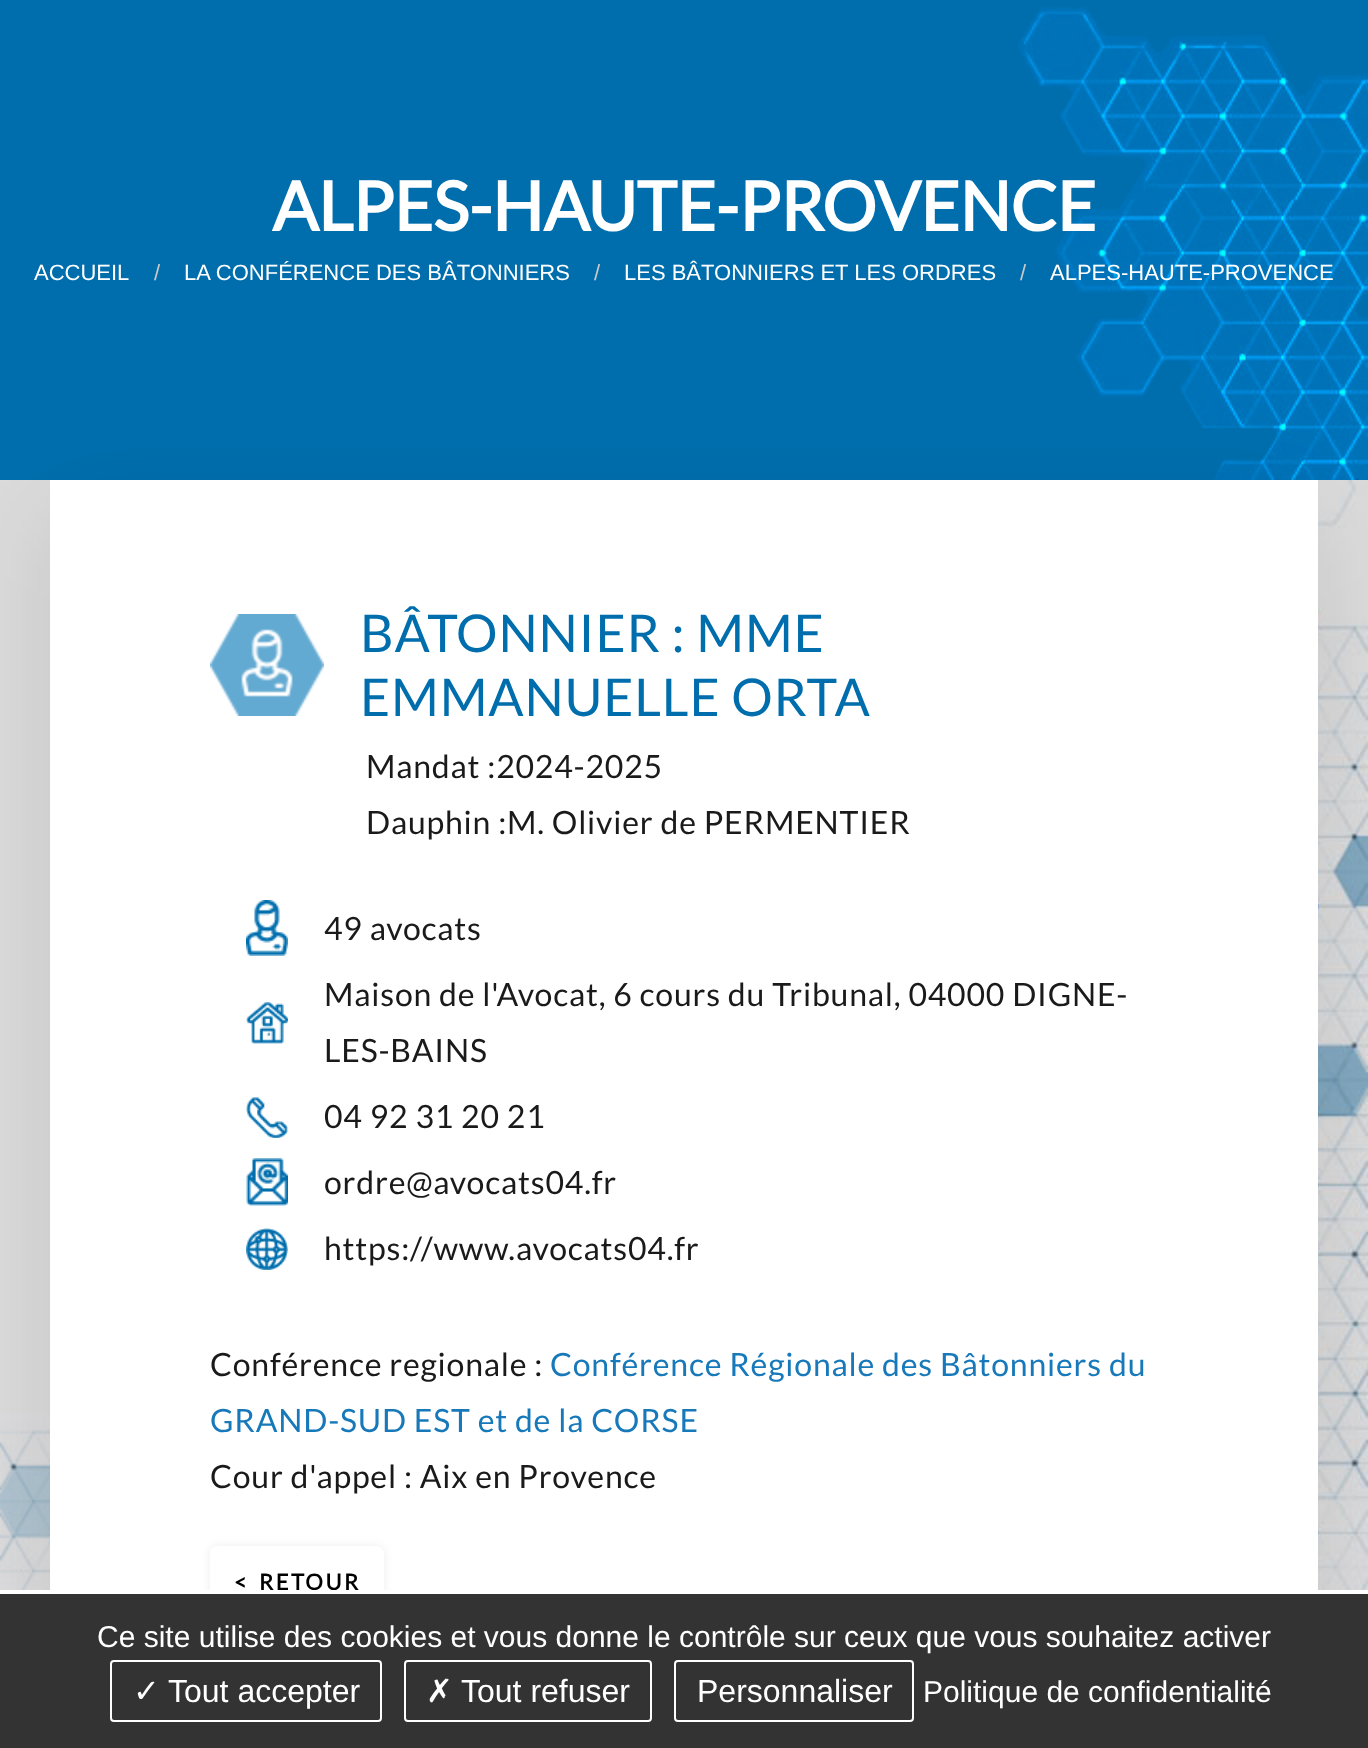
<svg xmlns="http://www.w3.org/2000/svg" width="1368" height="1748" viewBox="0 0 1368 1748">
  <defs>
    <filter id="blur1" x="-50%" y="-200%" width="200%" height="500%"><feGaussianBlur stdDeviation="51"/></filter>
    <filter id="blur2" x="-50%" y="-200%" width="200%" height="500%"><feGaussianBlur stdDeviation="5"/></filter>
  </defs>
  <rect width="100%" height="100%" fill="#dbdbdc"/>
  <image x="0" y="480" width="1368" height="1110" href="img1.png"/>
  <rect x="0" y="0" width="1368" height="480" fill="#006ead"/>
  <image x="1017" y="7" width="351" height="473" href="img2.png"/>
  <text x="272" y="231" font-family="Lato" font-size="68" font-weight="bold" letter-spacing="-0.3" fill="#ffffff">ALPES-HAUTE-PROVENCE</text>
  <text x="34" y="280" font-family="Liberation Sans" font-size="22" fill="#ffffff">ACCUEIL</text>
  <text x="154" y="280" font-family="Liberation Sans" font-size="22" fill="#cacaca">/</text>
  <text x="184" y="280" font-family="Liberation Sans" font-size="22" fill="#ffffff">LA CONFÉRENCE DES BÂTONNIERS</text>
  <text x="594" y="280" font-family="Liberation Sans" font-size="22" fill="#cacaca">/</text>
  <text x="624" y="280" font-family="Liberation Sans" font-size="22" fill="#ffffff">LES BÂTONNIERS ET LES ORDRES</text>
  <text x="1020" y="280" font-family="Liberation Sans" font-size="22" fill="#cacaca">/</text>
  <text x="1050" y="280" font-family="Liberation Sans" font-size="22" fill="#ffffff">ALPES-HAUTE-PROVENCE</text>
  <rect x="50" y="512" width="1268" height="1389" fill="#000000" fill-opacity="0.1" filter="url(#blur1)"/>
  <rect x="50" y="480" width="1268" height="1110" fill="#ffffff"/>
  <image x="210" y="614" width="114" height="102" href="img3.png"/>
  <text x="360" y="652" font-family="Lato" font-size="52" letter-spacing="0.8" fill="#006ead">BÂTONNIER : MME</text>
  <text x="360" y="716" font-family="Lato" font-size="52" letter-spacing="0.8" fill="#006ead">EMMANUELLE ORTA</text>
  <text x="366" y="778" font-family="Lato" font-size="32" letter-spacing="0.8" fill="#1a1a1a">Mandat :2024-2025</text>
  <text x="366" y="834" font-family="Lato" font-size="32" letter-spacing="0.8" fill="#1a1a1a">Dauphin :M. Olivier de PERMENTIER</text>
  <image x="246" y="900" width="42" height="56" href="img4.png"/>
  <text x="324" y="940" font-family="Lato" font-size="32" letter-spacing="0.8" fill="#1a1a1a">49 avocats</text>
  <image x="246" y="1002" width="42" height="42" href="img5.png"/>
  <text x="324" y="1006" font-family="Lato" font-size="32" letter-spacing="0.8" fill="#1a1a1a">Maison de l'Avocat, 6 cours du Tribunal, 04000 DIGNE-</text>
  <text x="324" y="1062" font-family="Lato" font-size="32" letter-spacing="0.8" fill="#1a1a1a">LES-BAINS</text>
  <image x="246" y="1097" width="42" height="41" href="img6.png"/>
  <text x="324" y="1128" font-family="Lato" font-size="32" letter-spacing="0.8" fill="#1a1a1a">04 92 31 20 21</text>
  <image x="246" y="1158" width="42" height="48" href="img7.png"/>
  <text x="324" y="1194" font-family="Lato" font-size="32" letter-spacing="0.8" fill="#1a1a1a">ordre@avocats04.fr</text>
  <image x="246" y="1228" width="42" height="42" href="img8.png"/>
  <text x="324" y="1260" font-family="Lato" font-size="32" letter-spacing="0.8" fill="#1a1a1a">https://www.avocats04.fr</text>
  <text x="210" y="1376" font-family="Lato" font-size="32" letter-spacing="0.8" fill="#1a1a1a">Conférence regionale :</text>
  <text x="550" y="1376" font-family="Lato" font-size="32" letter-spacing="0.8" fill="#1779ba">Conférence Régionale des Bâtonniers du</text>
  <text x="210" y="1432" font-family="Lato" font-size="32" letter-spacing="0.8" fill="#1779ba">GRAND-SUD EST et de la CORSE</text>
  <text x="210" y="1488" font-family="Lato" font-size="32" letter-spacing="0.8" fill="#1a1a1a">Cour d'appel : Aix en Provence</text>
  <rect x="210" y="1546" width="174" height="72" rx="8" fill="#000000" fill-opacity="0.07" filter="url(#blur2)"/>
  <rect x="210" y="1546" width="174" height="72" rx="8" fill="#ffffff"/>
  <text x="234" y="1590" font-family="Lato" font-size="22" font-weight="bold" letter-spacing="2.5" fill="#000000">&lt;</text>
  <text x="259" y="1590" font-family="Lato" font-size="22" font-weight="bold" letter-spacing="2.5" fill="#000000">RETOUR</text>
  <rect x="0" y="1590" width="1368" height="4" fill="#ffffff"/>
  <rect x="0" y="1594" width="1368" height="154" fill="#333333"/>
  <text x="97" y="1647" font-family="Liberation Sans" font-size="30" fill="#ffffff">Ce site utilise des cookies et vous donne le contrôle sur ceux que vous souhaitez activer</text>
  <rect x="111" y="1661" width="270" height="60" rx="3" fill="none" stroke="#ffffff" stroke-width="2"/>
  <text x="133" y="1702" font-family="DejaVu Sans" font-size="32" fill="#ffffff">✓</text>
  <text x="168" y="1702" font-family="Liberation Sans" font-size="32" fill="#ffffff">Tout accepter</text>
  <rect x="405" y="1661" width="246" height="60" rx="3" fill="none" stroke="#ffffff" stroke-width="2"/>
  <text x="426" y="1702" font-family="DejaVu Sans" font-size="32" fill="#ffffff">✗</text>
  <text x="461" y="1702" font-family="Liberation Sans" font-size="32" fill="#ffffff">Tout refuser</text>
  <rect x="675" y="1661" width="238" height="60" rx="3" fill="none" stroke="#ffffff" stroke-width="2"/>
  <text x="697" y="1702" font-family="Liberation Sans" font-size="32" fill="#ffffff">Personnaliser</text>
  <text x="923" y="1702" font-family="Liberation Sans" font-size="30" fill="#ffffff">Politique de confidentialité</text>
</svg>
